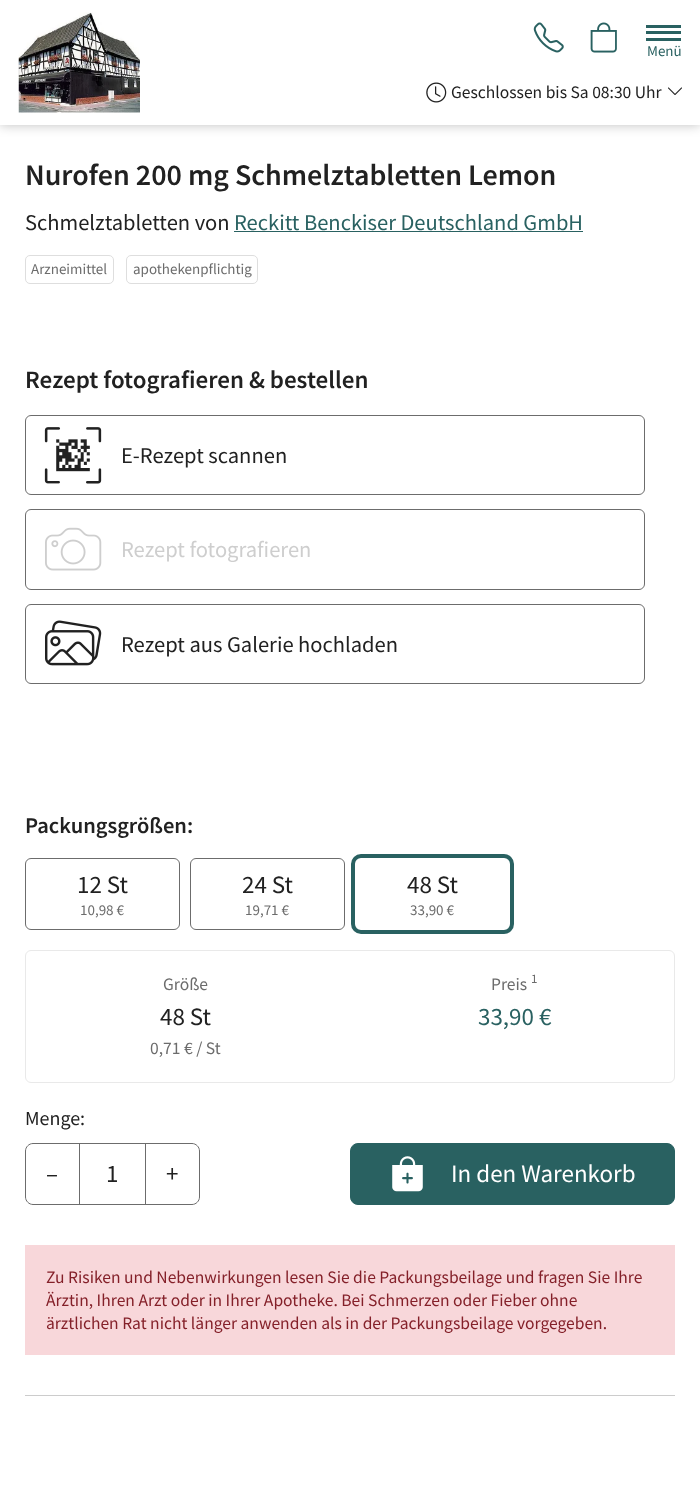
<svg xmlns="http://www.w3.org/2000/svg" width="700" height="1496" viewBox="0 0 700 1496">
  <defs>
    <filter id="blur1" x="-50%" y="-200%" width="200%" height="500%"><feGaussianBlur stdDeviation="6"/></filter>
  </defs>
  <rect width="100%" height="100%" fill="#ffffff"/>
  <rect x="0" y="0" width="700" height="125" fill="#000000" fill-opacity="0.25" filter="url(#blur1)"/>
  <rect x="0" y="0" width="700" height="125" fill="#ffffff"/>
  <image x="18" y="12" width="122" height="101" href="img1.png"/>
  <image x="533" y="22" width="31" height="31" href="img2.png"/>
  <image x="590" y="22" width="27" height="31" href="img3.png"/>
  <rect x="646" y="31" width="35" height="3" fill="#296161"/>
  <rect x="646" y="25" width="35" height="3" fill="#296161"/>
  <rect x="646" y="38" width="35" height="3" fill="#296161"/>
  <text x="647" y="56" font-family="Source Sans Pro" font-size="15" fill="#296161">Menü</text>
  <image x="426" y="82" width="21" height="21" href="img4.png"/>
  <text x="451" y="98" font-family="Source Sans Pro" font-size="17.5" fill="#212121">Geschlossen bis Sa 08:30 Uhr</text>
  <image x="668" y="87" width="14" height="8" href="img5.png"/>
  <text x="25" y="185" font-family="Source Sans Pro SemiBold" font-size="30" font-weight="600" fill="#212121">Nurofen 200 mg Schmelztabletten Lemon</text>
  <text x="25" y="230" font-family="Source Sans Pro" font-size="22.5" fill="#212121">Schmelztabletten von</text>
  <text x="234" y="230" font-family="Source Sans Pro" font-size="22.5" fill="#296161">Reckitt Benckiser Deutschland GmbH</text>
  <rect x="234" y="231" width="349" height="1" fill="#296161"/>
  <rect x="25.5" y="255.5" width="88" height="28" rx="4.5" fill="none" stroke="#dedede"/>
  <text x="31" y="274" font-family="Source Sans Pro" font-size="15" fill="#6c6c6c">Arzneimittel</text>
  <rect x="126.5" y="255.5" width="131" height="28" rx="4.5" fill="none" stroke="#dedede"/>
  <text x="133" y="274" font-family="Source Sans Pro" font-size="15" fill="#6c6c6c">apothekenpflichtig</text>
  <text x="25" y="388" font-family="Source Sans Pro SemiBold" font-size="25" font-weight="600" fill="#212121">Rezept fotografieren &amp; bestellen</text>
  <rect x="25.5" y="415.5" width="619" height="79" rx="5.5" fill="none" stroke="#6c6c6c"/>
  <image x="44" y="427" width="58" height="57" href="img6.png"/>
  <text x="121" y="463" font-family="Source Sans Pro" font-size="22.5" fill="#212121">E-Rezept scannen</text>
  <rect x="25.5" y="509.5" width="619" height="80" rx="5.5" fill="none" stroke="#6c6c6c"/>
  <image x="45" y="527" width="57" height="44" href="img7.png"/>
  <text x="121" y="557" font-family="Source Sans Pro" font-size="22.5" fill="#cecece">Rezept fotografieren</text>
  <rect x="25.5" y="604.5" width="619" height="79" rx="5.5" fill="none" stroke="#6c6c6c"/>
  <image x="45" y="620" width="57" height="46" href="img8.png"/>
  <text x="121" y="652" font-family="Source Sans Pro" font-size="22.5" fill="#212121">Rezept aus Galerie hochladen</text>
  <text x="25" y="833" font-family="Source Sans Pro SemiBold" font-size="22.5" font-weight="600" fill="#212121">Packungsgrößen:</text>
  <rect x="25.5" y="858.5" width="154" height="71" rx="5.5" fill="none" stroke="#6c6c6c"/>
  <text x="77" y="893" font-family="Source Sans Pro" font-size="25" fill="#212121">12 St</text>
  <text x="80" y="915" font-family="Source Sans Pro" font-size="15" fill="#6c6c6c">10,98 €</text>
  <rect x="190.5" y="858.5" width="154" height="71" rx="5.5" fill="none" stroke="#6c6c6c"/>
  <text x="242" y="893" font-family="Source Sans Pro" font-size="25" fill="#212121">24 St</text>
  <text x="245" y="915" font-family="Source Sans Pro" font-size="15" fill="#6c6c6c">19,71 €</text>
  <rect x="353" y="856" width="159" height="76" rx="8" fill="none" stroke="#296161" stroke-width="4"/>
  <text x="407" y="893" font-family="Source Sans Pro" font-size="25" fill="#212121">48 St</text>
  <text x="410" y="915" font-family="Source Sans Pro" font-size="15" fill="#6c6c6c">33,90 €</text>
  <rect x="25.5" y="950.5" width="649" height="132" rx="5.5" fill="none" stroke="#e9e9e9"/>
  <text x="163" y="990" font-family="Source Sans Pro" font-size="17.5" fill="#6c6c6c">Größe</text>
  <text x="160" y="1025" font-family="Source Sans Pro" font-size="25" fill="#212121">48 St</text>
  <text x="150" y="1054" font-family="Source Sans Pro" font-size="17.5" fill="#6c6c6c">0,71 € / St</text>
  <text x="491" y="990" font-family="Source Sans Pro" font-size="17.5" fill="#6c6c6c">Preis</text>
  <text x="531" y="983" font-family="Source Sans Pro" font-size="13" fill="#6c6c6c">1</text>
  <text x="478" y="1025" font-family="Source Sans Pro" font-size="25" fill="#296161">33,90 €</text>
  <text x="25" y="1125" font-family="Source Sans Pro" font-size="20" fill="#212121">Menge:</text>
  <rect x="79.5" y="1143.5" width="66" height="61" fill="none" stroke="#6c6c6c"/>
  <path d="M33 1143.5H79.5V1204.5H33C29 1204.5 25.5 1201 25.5 1197V1151C25.5 1147 29 1143.5 33 1143.5Z" fill="none" stroke="#6c6c6c"/>
  <text x="46" y="1182" font-family="Source Sans Pro" font-size="25" fill="#212121">–</text>
  <text x="106" y="1182" font-family="Source Sans Pro" font-size="25" fill="#212121">1</text>
  <path d="M145.5 1143.5H192C196 1143.5 199.5 1147 199.5 1151V1197C199.5 1201 196 1204.5 192 1204.5H145.5Z" fill="none" stroke="#6c6c6c"/>
  <text x="166" y="1182" font-family="Source Sans Pro" font-size="25" fill="#212121">+</text>
  <rect x="350.5" y="1143.5" width="324" height="61" rx="7.5" fill="#296161" stroke="#296161"/>
  <image x="392" y="1156" width="31" height="36" href="img9.png"/>
  <text x="451" y="1182" font-family="Source Sans Pro" font-size="25" fill="#ffffff">In den Warenkorb</text>
  <rect x="25" y="1245" width="650" height="110" fill="#f8d7da"/>
  <text x="46" y="1283" font-family="Source Sans Pro" font-size="17.5" fill="#842029">Zu Risiken und Nebenwirkungen lesen Sie die Packungsbeilage und fragen Sie Ihre</text>
  <text x="46" y="1306" font-family="Source Sans Pro" font-size="17.5" fill="#842029">Ärztin, Ihren Arzt oder in Ihrer Apotheke. Bei Schmerzen oder Fieber ohne</text>
  <text x="46" y="1329" font-family="Source Sans Pro" font-size="17.5" fill="#842029">ärztlichen Rat nicht länger anwenden als in der Packungsbeilage vorgegeben.</text>
  <rect x="25" y="1395" width="650" height="1" fill="#cccccc"/>
</svg>
